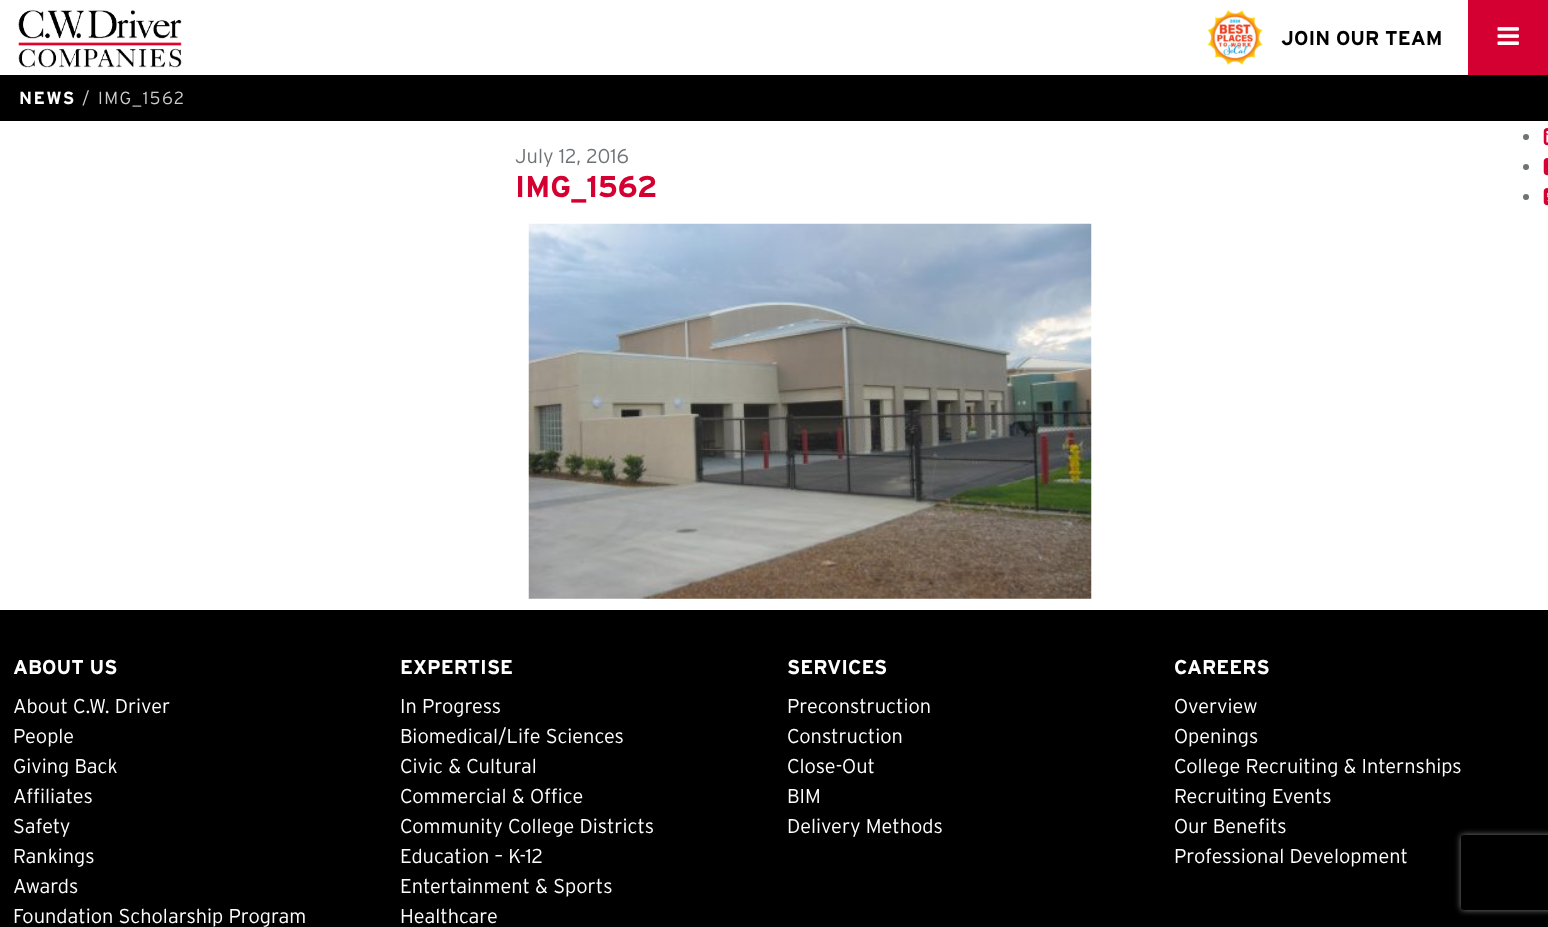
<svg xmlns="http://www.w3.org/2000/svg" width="1548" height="927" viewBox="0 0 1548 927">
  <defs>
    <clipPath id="clip1"><path d="M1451 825H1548V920H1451ZM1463.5 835H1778.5C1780 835 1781 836 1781 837.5V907.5C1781 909 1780 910 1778.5 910H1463.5C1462 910 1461 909 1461 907.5V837.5C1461 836 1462 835 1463.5 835Z" clip-rule="evenodd"/></clipPath>
    <filter id="blur1" x="-50%" y="-200%" width="200%" height="500%"><feGaussianBlur stdDeviation="3"/></filter>
  </defs>
  <rect width="100%" height="100%" fill="#ffffff"/>
  <image x="18" y="10" width="164" height="58" href="img1.png"/>
  <image x="1207" y="10" width="56" height="55" href="img2.png"/>
  <text x="1281" y="45" font-family="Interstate" font-size="20" font-weight="bold" fill="#000000">JOIN OUR TEAM</text>
  <rect x="1468" y="0" width="80" height="75" fill="#d50032"/>
  <image x="1497" y="27" width="22" height="18" href="img3.png"/>
  <rect x="0" y="75" width="1548" height="46" fill="#000000"/>
  <text x="19" y="104" font-family="Interstate" font-size="17.5" font-weight="bold" letter-spacing="1.5" fill="#ffffff">NEWS</text>
  <text x="82" y="104" font-family="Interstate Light" font-size="17.5" font-weight="300" letter-spacing="1.5" fill="#cccccc">/</text>
  <text x="98" y="104" font-family="Interstate Light" font-size="17.5" font-weight="300" letter-spacing="1.5" fill="#cccccc">IMG_1562</text>
  <text x="515" y="163" font-family="Interstate Light" font-size="20" font-weight="300" fill="#6e7376">July 12, 2016</text>
  <text x="515" y="197" font-family="Interstate" font-size="30" font-weight="bold" fill="#d50032">IMG_1562</text>
  <circle cx="1526" cy="137" r="3" fill="#6e7376"/>
  <image x="1543" y="128" width="5" height="18" href="img4.png"/>
  <circle cx="1526" cy="167" r="3" fill="#6e7376"/>
  <image x="1543" y="158" width="5" height="18" href="img5.png"/>
  <circle cx="1526" cy="197" r="3" fill="#6e7376"/>
  <image x="1543" y="188" width="5" height="18" href="img6.png"/>
  <image x="528" y="223" width="564" height="376" href="img7.png"/>
  <rect x="0" y="610" width="1548" height="317" fill="#000000"/>
  <text x="13" y="674" font-family="Interstate" font-size="20" font-weight="bold" fill="#ffffff">ABOUT US</text>
  <text x="13" y="713" font-family="Interstate Light" font-size="20" font-weight="300" fill="#ffffff">About C.W. Driver</text>
  <text x="13" y="743" font-family="Interstate Light" font-size="20" font-weight="300" fill="#ffffff">People</text>
  <text x="13" y="773" font-family="Interstate Light" font-size="20" font-weight="300" fill="#ffffff">Giving Back</text>
  <text x="13" y="803" font-family="Interstate Light" font-size="20" font-weight="300" fill="#ffffff">Affiliates</text>
  <text x="13" y="833" font-family="Interstate Light" font-size="20" font-weight="300" fill="#ffffff">Safety</text>
  <text x="13" y="863" font-family="Interstate Light" font-size="20" font-weight="300" fill="#ffffff">Rankings</text>
  <text x="13" y="893" font-family="Interstate Light" font-size="20" font-weight="300" fill="#ffffff">Awards</text>
  <text x="13" y="923" font-family="Interstate Light" font-size="20" font-weight="300" fill="#ffffff">Foundation Scholarship Program</text>
  <text x="400" y="674" font-family="Interstate" font-size="20" font-weight="bold" fill="#ffffff">EXPERTISE</text>
  <text x="400" y="713" font-family="Interstate Light" font-size="20" font-weight="300" fill="#ffffff">In Progress</text>
  <text x="400" y="743" font-family="Interstate Light" font-size="20" font-weight="300" fill="#ffffff">Biomedical/Life Sciences</text>
  <text x="400" y="773" font-family="Interstate Light" font-size="20" font-weight="300" fill="#ffffff">Civic &amp; Cultural</text>
  <text x="400" y="803" font-family="Interstate Light" font-size="20" font-weight="300" fill="#ffffff">Commercial &amp; Office</text>
  <text x="400" y="833" font-family="Interstate Light" font-size="20" font-weight="300" fill="#ffffff">Community College Districts</text>
  <text x="400" y="863" font-family="Interstate Light" font-size="20" font-weight="300" fill="#ffffff">Education – K-12</text>
  <text x="400" y="893" font-family="Interstate Light" font-size="20" font-weight="300" fill="#ffffff">Entertainment &amp; Sports</text>
  <text x="400" y="923" font-family="Interstate Light" font-size="20" font-weight="300" fill="#ffffff">Healthcare</text>
  <text x="787" y="674" font-family="Interstate" font-size="20" font-weight="bold" fill="#ffffff">SERVICES</text>
  <text x="787" y="713" font-family="Interstate Light" font-size="20" font-weight="300" fill="#ffffff">Preconstruction</text>
  <text x="787" y="743" font-family="Interstate Light" font-size="20" font-weight="300" fill="#ffffff">Construction</text>
  <text x="787" y="773" font-family="Interstate Light" font-size="20" font-weight="300" fill="#ffffff">Close-Out</text>
  <text x="787" y="803" font-family="Interstate Light" font-size="20" font-weight="300" fill="#ffffff">BIM</text>
  <text x="787" y="833" font-family="Interstate Light" font-size="20" font-weight="300" fill="#ffffff">Delivery Methods</text>
  <text x="1174" y="674" font-family="Interstate" font-size="20" font-weight="bold" fill="#ffffff">CAREERS</text>
  <text x="1174" y="713" font-family="Interstate Light" font-size="20" font-weight="300" fill="#ffffff">Overview</text>
  <text x="1174" y="743" font-family="Interstate Light" font-size="20" font-weight="300" fill="#ffffff">Openings</text>
  <text x="1174" y="773" font-family="Interstate Light" font-size="20" font-weight="300" fill="#ffffff">College Recruiting &amp; Internships</text>
  <text x="1174" y="803" font-family="Interstate Light" font-size="20" font-weight="300" fill="#ffffff">Recruiting Events</text>
  <text x="1174" y="833" font-family="Interstate Light" font-size="20" font-weight="300" fill="#ffffff">Our Benefits</text>
  <text x="1174" y="863" font-family="Interstate Light" font-size="20" font-weight="300" fill="#ffffff">Professional Development</text>
  <g clip-path="url(#clip1)">
    <rect x="1461" y="835" width="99" height="75" rx="2.5" fill="#808080" filter="url(#blur1)"/>
  </g>
</svg>
